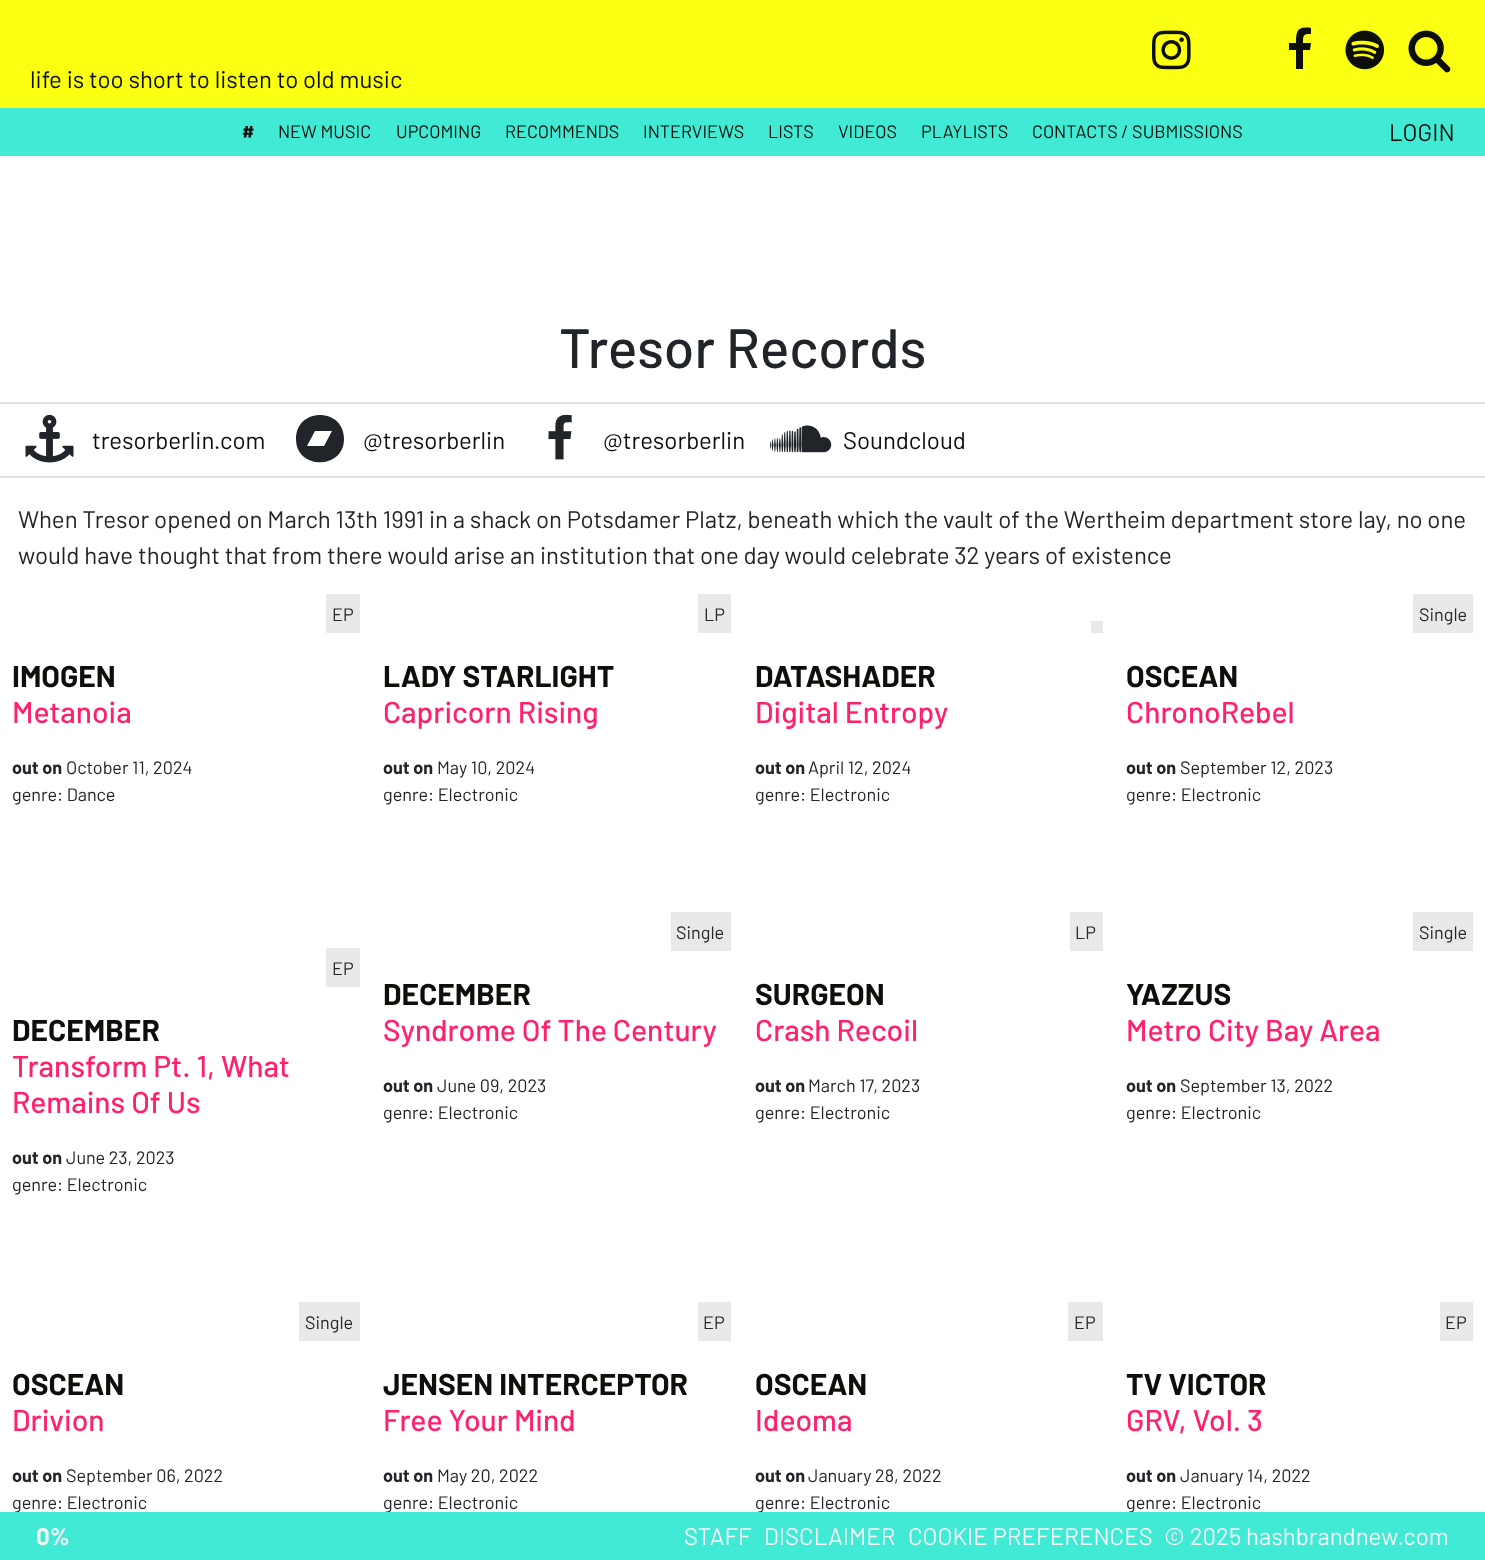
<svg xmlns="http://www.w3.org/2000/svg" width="1485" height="1560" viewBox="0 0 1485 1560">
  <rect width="100%" height="100%" fill="#ffffff"/>
  <rect x="0" y="0" width="1485" height="108" fill="#fbff12"/>
  <text x="30" y="88" font-family="Barlow" font-size="24" fill="#0c0f0a">life is too short to listen to old music</text>
  <image x="1152" y="30" width="39" height="40" href="img1.png"/>
  <path d="M1311 28C1298 26 1296 30 1296 43H1289V50H1296V69H1303V50H1310L1311 43H1303C1303 35 1303 34 1311 34Z" fill="#0c0f0a"/>
  <image x="1345" y="30" width="40" height="40" href="img2.png"/>
  <image x="1408" y="30" width="43" height="43" href="img3.png"/>
  <rect x="0" y="108" width="1485" height="48" fill="#41ead4"/>
  <text x="242" y="138" font-family="Barlow" font-size="18" font-weight="bold" fill="#0c0f0a">#</text>
  <text x="278" y="138" font-family="Barlow" font-size="18" fill="#0c0f0a">NEW MUSIC</text>
  <text x="396" y="138" font-family="Barlow" font-size="18" fill="#0c0f0a">UPCOMING</text>
  <text x="505" y="138" font-family="Barlow" font-size="18" fill="#0c0f0a">RECOMMENDS</text>
  <text x="643" y="138" font-family="Barlow" font-size="18" fill="#0c0f0a">INTERVIEWS</text>
  <text x="768" y="138" font-family="Barlow" font-size="18" fill="#0c0f0a">LISTS</text>
  <text x="838" y="138" font-family="Barlow" font-size="18" fill="#0c0f0a">VIDEOS</text>
  <text x="921" y="138" font-family="Barlow" font-size="18" fill="#0c0f0a">PLAYLISTS</text>
  <text x="1032" y="138" font-family="Barlow" font-size="18" fill="#0c0f0a">CONTACTS / SUBMISSIONS</text>
  <text x="1389" y="141" font-family="Barlow" font-size="24" fill="#0c0f0a">LOGIN</text>
  <text x="559" y="368" font-family="Barlow" font-size="55.25" font-weight="500" fill="#212529">Tresor Records</text>
  <rect x="0" y="402" width="1485" height="2" fill="#dee2e6"/>
  <rect x="0" y="476" width="1485" height="2" fill="#dee2e6"/>
  <image x="25" y="414" width="49" height="49" href="img4.png"/>
  <text x="92" y="449" font-family="Barlow" font-size="24" fill="#0c0f0a">tresorberlin.com</text>
  <path d="M324 446H307L315 431H332ZM344 439C344 407 296 407 296 439C296 470 344 470 344 439Z" fill="#212529"/>
  <text x="363" y="449" font-family="Barlow" font-size="24" fill="#0c0f0a">@tresorberlin</text>
  <image x="548" y="414" width="24" height="46" href="img5.png"/>
  <text x="603" y="449" font-family="Barlow" font-size="24" fill="#0c0f0a">@tresorberlin</text>
  <image x="770" y="425" width="62" height="28" href="img6.png"/>
  <text x="843" y="449" font-family="Barlow" font-size="24" fill="#0c0f0a">Soundcloud</text>
  <text x="18" y="528" font-family="Barlow" font-size="24" fill="#212529">When Tresor opened on March 13th 1991 in a shack on Potsdamer Platz, beneath which the vault of the Wertheim department store lay, no one</text>
  <text x="18" y="564" font-family="Barlow" font-size="24" fill="#212529">would have thought that from there would arise an institution that one day would celebrate 32 years of existence</text>
  <rect x="326" y="594" width="34" height="39" fill="#e9e9e9"/>
  <text x="332" y="621" font-family="Barlow" font-size="18" fill="#242723">EP</text>
  <text x="12" y="687" font-family="Barlow" font-size="30" font-weight="bold" fill="#0c0f0a">IMOGEN</text>
  <text x="12" y="723" font-family="Barlow" font-size="30" font-weight="500" fill="#ff206e">Metanoia</text>
  <text x="12" y="774" font-family="Barlow" font-size="18" font-weight="bold" fill="#212529">out on</text>
  <text x="66" y="774" font-family="Barlow" font-size="18" fill="#212529">October 11, 2024</text>
  <text x="12" y="801" font-family="Barlow" font-size="18" fill="#212529">genre: Dance</text>
  <rect x="698" y="594" width="33" height="39" fill="#e9e9e9"/>
  <text x="704" y="621" font-family="Barlow" font-size="18" fill="#242723">LP</text>
  <text x="383" y="687" font-family="Barlow" font-size="30" font-weight="bold" fill="#0c0f0a">LADY STARLIGHT</text>
  <text x="383" y="723" font-family="Barlow" font-size="30" font-weight="500" fill="#ff206e">Capricorn Rising</text>
  <text x="383" y="774" font-family="Barlow" font-size="18" font-weight="bold" fill="#212529">out on</text>
  <text x="437" y="774" font-family="Barlow" font-size="18" fill="#212529">May 10, 2024</text>
  <text x="383" y="801" font-family="Barlow" font-size="18" fill="#212529">genre: Electronic</text>
  <rect x="1091" y="621" width="12" height="12" fill="#e9e9e9"/>
  <text x="755" y="687" font-family="Barlow" font-size="30" font-weight="bold" fill="#0c0f0a">DATASHADER</text>
  <text x="755" y="723" font-family="Barlow" font-size="30" font-weight="500" fill="#ff206e">Digital Entropy</text>
  <text x="755" y="774" font-family="Barlow" font-size="18" font-weight="bold" fill="#212529">out on</text>
  <text x="808" y="774" font-family="Barlow" font-size="18" fill="#212529">April 12, 2024</text>
  <text x="755" y="801" font-family="Barlow" font-size="18" fill="#212529">genre: Electronic</text>
  <rect x="1413" y="594" width="60" height="39" fill="#e9e9e9"/>
  <text x="1419" y="621" font-family="Barlow" font-size="18" fill="#242723">Single</text>
  <text x="1126" y="687" font-family="Barlow" font-size="30" font-weight="bold" fill="#0c0f0a">OSCEAN</text>
  <text x="1126" y="723" font-family="Barlow" font-size="30" font-weight="500" fill="#ff206e">ChronoRebel</text>
  <text x="1126" y="774" font-family="Barlow" font-size="18" font-weight="bold" fill="#212529">out on</text>
  <text x="1180" y="774" font-family="Barlow" font-size="18" fill="#212529">September 12, 2023</text>
  <text x="1126" y="801" font-family="Barlow" font-size="18" fill="#212529">genre: Electronic</text>
  <rect x="326" y="948" width="34" height="39" fill="#e9e9e9"/>
  <text x="332" y="975" font-family="Barlow" font-size="18" fill="#242723">EP</text>
  <text x="12" y="1041" font-family="Barlow" font-size="30" font-weight="bold" fill="#0c0f0a">DECEMBER</text>
  <text x="12" y="1077" font-family="Barlow" font-size="30" font-weight="500" fill="#ff206e">Transform Pt. 1, What</text>
  <text x="12" y="1113" font-family="Barlow" font-size="30" font-weight="500" fill="#ff206e">Remains Of Us</text>
  <text x="12" y="1164" font-family="Barlow" font-size="18" font-weight="bold" fill="#212529">out on</text>
  <text x="66" y="1164" font-family="Barlow" font-size="18" fill="#212529">June 23, 2023</text>
  <text x="12" y="1191" font-family="Barlow" font-size="18" fill="#212529">genre: Electronic</text>
  <rect x="671" y="912" width="60" height="39" fill="#e9e9e9"/>
  <text x="676" y="939" font-family="Barlow" font-size="18" fill="#242723">Single</text>
  <text x="383" y="1005" font-family="Barlow" font-size="30" font-weight="bold" fill="#0c0f0a">DECEMBER</text>
  <text x="383" y="1041" font-family="Barlow" font-size="30" font-weight="500" fill="#ff206e">Syndrome Of The Century</text>
  <text x="383" y="1092" font-family="Barlow" font-size="18" font-weight="bold" fill="#212529">out on</text>
  <text x="437" y="1092" font-family="Barlow" font-size="18" fill="#212529">June 09, 2023</text>
  <text x="383" y="1119" font-family="Barlow" font-size="18" fill="#212529">genre: Electronic</text>
  <rect x="1070" y="912" width="33" height="39" fill="#e9e9e9"/>
  <text x="1075" y="939" font-family="Barlow" font-size="18" fill="#242723">LP</text>
  <text x="755" y="1005" font-family="Barlow" font-size="30" font-weight="bold" fill="#0c0f0a">SURGEON</text>
  <text x="755" y="1041" font-family="Barlow" font-size="30" font-weight="500" fill="#ff206e">Crash Recoil</text>
  <text x="755" y="1092" font-family="Barlow" font-size="18" font-weight="bold" fill="#212529">out on</text>
  <text x="808" y="1092" font-family="Barlow" font-size="18" fill="#212529">March 17, 2023</text>
  <text x="755" y="1119" font-family="Barlow" font-size="18" fill="#212529">genre: Electronic</text>
  <rect x="1413" y="912" width="60" height="39" fill="#e9e9e9"/>
  <text x="1419" y="939" font-family="Barlow" font-size="18" fill="#242723">Single</text>
  <text x="1126" y="1005" font-family="Barlow" font-size="30" font-weight="bold" fill="#0c0f0a">YAZZUS</text>
  <text x="1126" y="1041" font-family="Barlow" font-size="30" font-weight="500" fill="#ff206e">Metro City Bay Area</text>
  <text x="1126" y="1092" font-family="Barlow" font-size="18" font-weight="bold" fill="#212529">out on</text>
  <text x="1180" y="1092" font-family="Barlow" font-size="18" fill="#212529">September 13, 2022</text>
  <text x="1126" y="1119" font-family="Barlow" font-size="18" fill="#212529">genre: Electronic</text>
  <rect x="299" y="1302" width="61" height="39" fill="#e9e9e9"/>
  <text x="305" y="1329" font-family="Barlow" font-size="18" fill="#242723">Single</text>
  <text x="12" y="1395" font-family="Barlow" font-size="30" font-weight="bold" fill="#0c0f0a">OSCEAN</text>
  <text x="12" y="1431" font-family="Barlow" font-size="30" font-weight="500" fill="#ff206e">Drivion</text>
  <text x="12" y="1482" font-family="Barlow" font-size="18" font-weight="bold" fill="#212529">out on</text>
  <text x="66" y="1482" font-family="Barlow" font-size="18" fill="#212529">September 06, 2022</text>
  <text x="12" y="1509" font-family="Barlow" font-size="18" fill="#212529">genre: Electronic</text>
  <rect x="698" y="1302" width="33" height="39" fill="#e9e9e9"/>
  <text x="703" y="1329" font-family="Barlow" font-size="18" fill="#242723">EP</text>
  <text x="383" y="1395" font-family="Barlow" font-size="30" font-weight="bold" fill="#0c0f0a">JENSEN INTERCEPTOR</text>
  <text x="383" y="1431" font-family="Barlow" font-size="30" font-weight="500" fill="#ff206e">Free Your Mind</text>
  <text x="383" y="1482" font-family="Barlow" font-size="18" font-weight="bold" fill="#212529">out on</text>
  <text x="437" y="1482" font-family="Barlow" font-size="18" fill="#212529">May 20, 2022</text>
  <text x="383" y="1509" font-family="Barlow" font-size="18" fill="#212529">genre: Electronic</text>
  <rect x="1068" y="1302" width="35" height="39" fill="#e9e9e9"/>
  <text x="1074" y="1329" font-family="Barlow" font-size="18" fill="#242723">EP</text>
  <text x="755" y="1395" font-family="Barlow" font-size="30" font-weight="bold" fill="#0c0f0a">OSCEAN</text>
  <text x="755" y="1431" font-family="Barlow" font-size="30" font-weight="500" fill="#ff206e">Ideoma</text>
  <text x="755" y="1482" font-family="Barlow" font-size="18" font-weight="bold" fill="#212529">out on</text>
  <text x="808" y="1482" font-family="Barlow" font-size="18" fill="#212529">January 28, 2022</text>
  <text x="755" y="1509" font-family="Barlow" font-size="18" fill="#212529">genre: Electronic</text>
  <rect x="1440" y="1302" width="33" height="39" fill="#e9e9e9"/>
  <text x="1445" y="1329" font-family="Barlow" font-size="18" fill="#242723">EP</text>
  <text x="1126" y="1395" font-family="Barlow" font-size="30" font-weight="bold" fill="#0c0f0a">TV VICTOR</text>
  <text x="1126" y="1431" font-family="Barlow" font-size="30" font-weight="500" fill="#ff206e">GRV, Vol. 3</text>
  <text x="1126" y="1482" font-family="Barlow" font-size="18" font-weight="bold" fill="#212529">out on</text>
  <text x="1180" y="1482" font-family="Barlow" font-size="18" fill="#212529">January 14, 2022</text>
  <text x="1126" y="1509" font-family="Barlow" font-size="18" fill="#212529">genre: Electronic</text>
  <rect x="0" y="1512" width="1485" height="48" fill="#41ead4"/>
  <text x="36" y="1545" font-family="Barlow" font-size="24" font-weight="bold" fill="#f5f5f5">0%</text>
  <text x="684" y="1545" font-family="Barlow" font-size="24" fill="#f5f5f5">STAFF</text>
  <text x="764" y="1545" font-family="Barlow" font-size="24" fill="#f5f5f5">DISCLAIMER</text>
  <text x="908" y="1545" font-family="Barlow" font-size="24" fill="#f5f5f5">COOKIE PREFERENCES</text>
  <text x="1164" y="1545" font-family="Barlow" font-size="24" fill="#f5f5f5">© 2025 hashbrandnew.com</text>
</svg>
